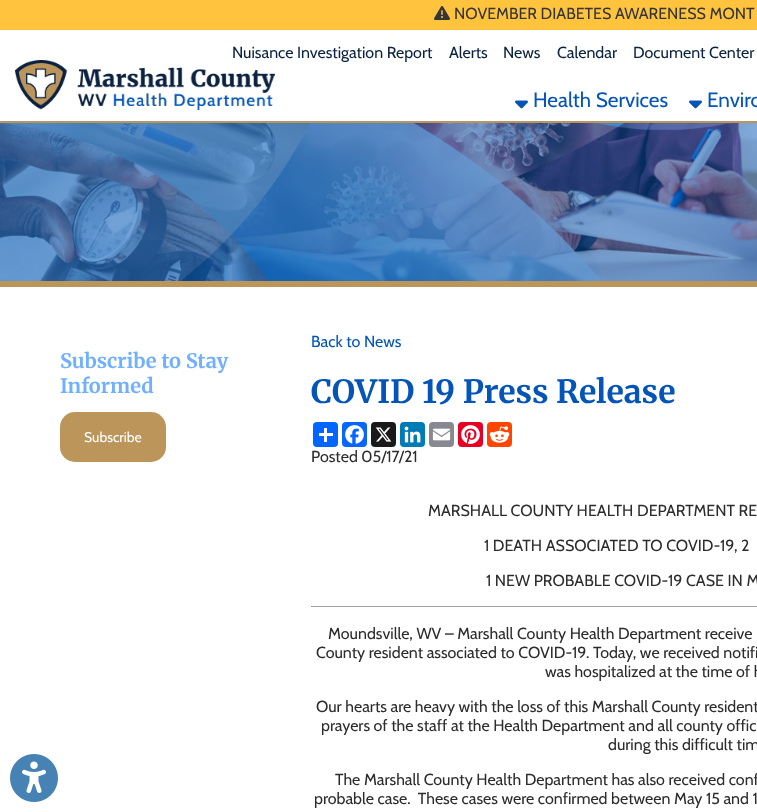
<svg xmlns="http://www.w3.org/2000/svg" width="757" height="812" viewBox="0 0 757 812">
  <rect width="100%" height="100%" fill="#ffffff"/>
  <rect x="0" y="121" width="757" height="2" fill="#bc955a"/>
  <rect x="0" y="0" width="757" height="30" fill="#ffc33e"/>
  <image x="434" y="6" width="16" height="14" href="img1.png"/>
  <text x="454" y="19" font-family="Cabin" font-size="16" fill="#353535">NOVEMBER DIABETES AWARENESS MONT</text>
  <text x="232" y="58" font-family="Cabin" font-size="16" fill="#0b2240">Nuisance Investigation Report</text>
  <text x="449" y="58" font-family="Cabin" font-size="16" fill="#0b2240">Alerts</text>
  <text x="503" y="58" font-family="Cabin" font-size="16" fill="#0b2240">News</text>
  <text x="557" y="58" font-family="Cabin" font-size="16" fill="#0b2240">Calendar</text>
  <text x="633" y="58" font-family="Cabin" font-size="16" fill="#0b2240">Document Center</text>
  <image x="15" y="60" width="260" height="50" href="img2.png"/>
  <image x="515" y="100" width="13" height="9" href="img3.png"/>
  <text x="533" y="107" font-family="Cabin" font-size="20.75" fill="#0455b7">Health Services</text>
  <image x="689" y="100" width="13" height="9" href="img3.png"/>
  <text x="707" y="107" font-family="Cabin" font-size="20.75" fill="#0455b7">Enviro</text>
  <image x="10" y="754" width="48" height="48" href="img4.png"/>
  <image x="0" y="123" width="757" height="158" href="img5.png"/>
  <rect x="0" y="281" width="757" height="6" fill="#bc955a"/>
  <text x="60" y="368" font-family="Merriweather" font-size="20" font-weight="300" fill="#71b0ff">Subscribe to Stay</text>
  <text x="60" y="393" font-family="Merriweather" font-size="20" font-weight="300" fill="#71b0ff">Informed</text>
  <rect x="60" y="412" width="106" height="50" rx="15" fill="#bc955a"/>
  <text x="84" y="442" font-family="Cabin" font-size="14" fill="#ffffff">Subscribe</text>
  <text x="311" y="347" font-family="Cabin" font-size="16" fill="#0455b7">Back to News</text>
  <text x="311" y="403" font-family="Merriweather" font-size="32" font-weight="300" fill="#0455b7">COVID 19 Press Release</text>
  <rect x="313" y="422" width="25" height="25" rx="4" fill="#0166ff"/>
  <rect x="324" y="428" width="3" height="14" fill="#ffffff"/>
  <rect x="319" y="433" width="14" height="3" fill="#ffffff"/>
  <rect x="342" y="422" width="25" height="25" rx="4" fill="#0866ff"/>
  <image x="345" y="425" width="19" height="19" href="img6.png"/>
  <rect x="371" y="422" width="25" height="25" rx="4" fill="#1a1a1a"/>
  <image x="375" y="427" width="17" height="15" href="img7.png"/>
  <rect x="400" y="422" width="25" height="25" rx="4" fill="#007bb5"/>
  <image x="404" y="426" width="17" height="17" href="img8.png"/>
  <rect x="429" y="422" width="25" height="25" rx="4" fill="#888990"/>
  <image x="432" y="428" width="19" height="13" href="img9.png"/>
  <rect x="458" y="422" width="25" height="25" rx="4" fill="#e60023"/>
  <image x="461" y="425" width="19" height="19" href="img10.png"/>
  <rect x="487" y="422" width="25" height="25" rx="4" fill="#ff4500"/>
  <image x="489" y="426" width="21" height="17" href="img11.png"/>
  <text x="311" y="462" font-family="Cabin" font-size="16" fill="#2c2c2c">Posted 05/17/21</text>
  <text x="428" y="516" font-family="Cabin" font-size="16" fill="#2c2c2c">MARSHALL COUNTY HEALTH DEPARTMENT RE</text>
  <text x="484" y="551" font-family="Cabin" font-size="16" fill="#2c2c2c">1 DEATH ASSOCIATED TO COVID-19, 2</text>
  <text x="486" y="586" font-family="Cabin" font-size="16" fill="#2c2c2c">1 NEW PROBABLE COVID-19 CASE IN M</text>
  <rect x="311" y="606" width="446" height="1" fill="#9f9f9f"/>
  <text x="328" y="639" font-family="Cabin" font-size="16" fill="#2c2c2c">Moundsville, WV – Marshall County Health Department receive</text>
  <text x="316" y="658" font-family="Cabin" font-size="16" fill="#2c2c2c">County resident associated to COVID-19. Today, we received notifi</text>
  <text x="545" y="677" font-family="Cabin" font-size="16" fill="#2c2c2c">was hospitalized at the time of h</text>
  <text x="316" y="712" font-family="Cabin" font-size="16" fill="#2c2c2c">Our hearts are heavy with the loss of this Marshall County resident</text>
  <text x="321" y="731" font-family="Cabin" font-size="16" fill="#2c2c2c">prayers of the staff at the Health Department and all county offic</text>
  <text x="608" y="750" font-family="Cabin" font-size="16" fill="#2c2c2c">during this difficult tim</text>
  <text x="335" y="785" font-family="Cabin" font-size="16" fill="#2c2c2c">The Marshall County Health Department has also received conf</text>
  <text x="314" y="804" font-family="Cabin" font-size="16" fill="#2c2c2c" xml:space="preserve">probable case.  These cases were confirmed between May 15 and 1</text>
</svg>
